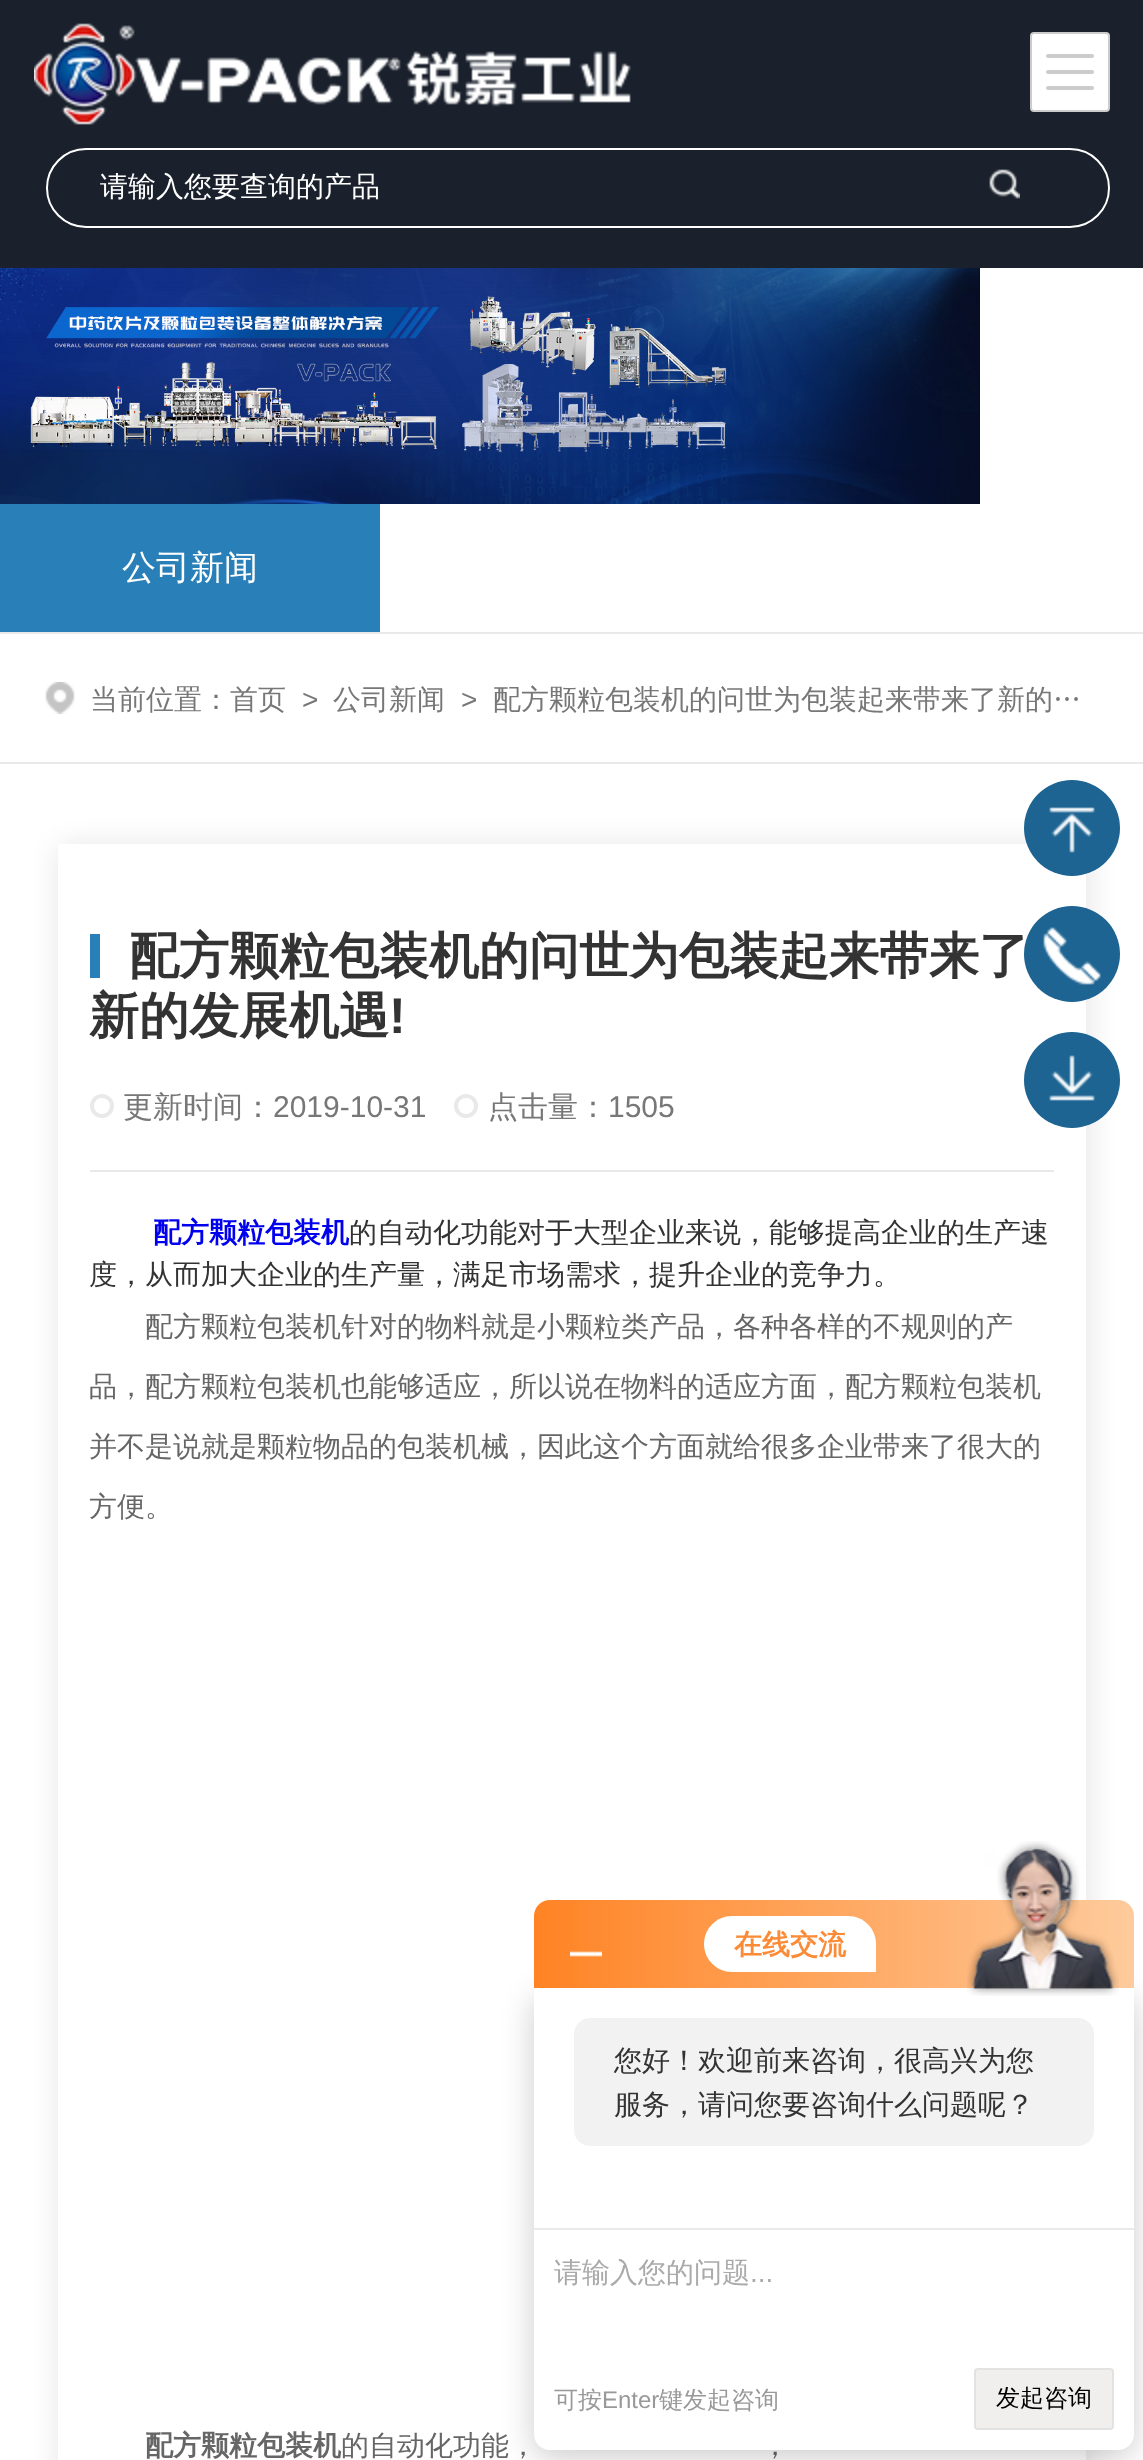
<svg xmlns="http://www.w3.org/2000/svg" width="1143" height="2460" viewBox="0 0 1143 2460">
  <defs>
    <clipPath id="clip1"><path d="M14 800H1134V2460H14ZM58 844H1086V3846H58Z" clip-rule="evenodd"/></clipPath>
    <filter id="blur1" x="-50%" y="-200%" width="200%" height="500%"><feGaussianBlur stdDeviation="15"/></filter>
    <filter id="blur2" x="-50%" y="-200%" width="200%" height="500%"><feGaussianBlur stdDeviation="16"/></filter>
    <linearGradient id="g1" gradientUnits="userSpaceOnUse" x1="534" y1="1944" x2="1134" y2="1944"><stop offset="0" stop-color="#ff8324"/><stop offset="1" stop-color="#fecb9c"/></linearGradient>
  </defs>
  <rect width="100%" height="100%" fill="#ffffff"/>
  <rect x="0" y="0" width="1143" height="268" fill="#1a212c"/>
  <image x="34" y="23" width="597" height="102" href="img1.png"/>
  <rect x="1031" y="33" width="78" height="78" rx="3" fill="#ffffff" stroke="#cccccc" stroke-width="2"/>
  <rect x="1046" y="54" width="48" height="4" rx="2" fill="#cccccc"/>
  <rect x="1046" y="70" width="48" height="4" rx="2" fill="#cccccc"/>
  <rect x="1046" y="86" width="48" height="4" rx="2" fill="#cccccc"/>
  <rect x="47" y="149" width="1062" height="78" rx="39" fill="none" stroke="#ffffff" stroke-width="2"/>
  <text x="100" y="196" font-family="WenQuanYi Zen Hei" font-size="28" font-weight="500" fill="#ffffff">请输入您要查询的产品</text>
  <image x="989" y="169" width="31" height="30" href="img2.png"/>
  <image x="0" y="268" width="980" height="236" href="img3.png"/>
  <rect x="0" y="632" width="1143" height="2" fill="#e9e9e9"/>
  <rect x="0" y="504" width="380" height="128" fill="#2980b8"/>
  <text x="122" y="579" font-family="WenQuanYi Zen Hei" font-size="34" font-weight="500" fill="#ffffff">公司新闻</text>
  <image x="45" y="682" width="30" height="32" href="img4.png"/>
  <text x="90" y="709" font-family="WenQuanYi Zen Hei" font-size="28" font-weight="500" fill="#777777">当前位置：首页</text>
  <text x="302" y="709" font-family="Liberation Sans" font-size="28" fill="#777777">&gt;</text>
  <text x="333" y="709" font-family="WenQuanYi Zen Hei" font-size="28" font-weight="500" fill="#777777">公司新闻</text>
  <text x="461" y="709" font-family="Liberation Sans" font-size="28" fill="#777777">&gt;</text>
  <text x="493" y="709" font-family="WenQuanYi Zen Hei" font-size="28" font-weight="500" fill="#777777">配方颗粒包装机的问世为包装起来带来了新的…</text>
  <rect x="0" y="762" width="1143" height="2" fill="#e9e9e9"/>
  <g clip-path="url(#clip1)">
    <rect x="60" y="846" width="1028" height="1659" fill="#e4e3e3" filter="url(#blur1)"/>
  </g>
  <rect x="90" y="934" width="10" height="44" fill="#2980b8"/>
  <text x="129" y="973" font-family="WenQuanYi Zen Hei" font-size="50" font-weight="bold" fill="#333333">配方颗粒包装机的问世为包装起来带来了</text>
  <text x="89" y="1033" font-family="WenQuanYi Zen Hei" font-size="50" font-weight="bold" fill="#333333">新的发展机遇</text>
  <text x="389" y="1033" font-family="Liberation Sans" font-size="50" font-weight="bold" fill="#333333">!</text>
  <rect x="90" y="1170" width="964" height="2" fill="#e9e9e9"/>
  <circle cx="102" cy="1106" r="10" fill="none" stroke="#e9e9e9" stroke-width="4"/>
  <text x="123" y="1117" font-family="WenQuanYi Zen Hei" font-size="30" font-weight="500" fill="#777777">更新时间：</text>
  <text x="273" y="1117" font-family="Liberation Sans" font-size="30" fill="#777777">2019-10-31</text>
  <circle cx="466" cy="1106" r="10" fill="none" stroke="#e9e9e9" stroke-width="4"/>
  <text x="488" y="1117" font-family="WenQuanYi Zen Hei" font-size="30" font-weight="500" fill="#777777">点击量：</text>
  <text x="608" y="1117" font-family="Liberation Sans" font-size="30" fill="#777777">1505</text>
  <text x="153" y="1242" font-family="WenQuanYi Zen Hei" font-size="28" font-weight="bold" fill="#0000ee">配方颗粒包装机</text>
  <text x="349" y="1242" font-family="WenQuanYi Zen Hei" font-size="28" font-weight="500" fill="#333333">的自动化功能对于大型企业来说，能够提高企业的生产速</text>
  <text x="89" y="1284" font-family="WenQuanYi Zen Hei" font-size="28" font-weight="500" fill="#333333">度，从而加大企业的生产量，满足市场需求，提升企业的竞争力。</text>
  <text x="145" y="1336" font-family="WenQuanYi Zen Hei" font-size="28" font-weight="500" fill="#666666">配方颗粒包装机针对的物料就是小颗粒类产品，各种各样的不规则的产</text>
  <text x="89" y="1396" font-family="WenQuanYi Zen Hei" font-size="28" font-weight="500" fill="#666666">品，配方颗粒包装机也能够适应，所以说在物料的适应方面，配方颗粒包装机</text>
  <text x="89" y="1456" font-family="WenQuanYi Zen Hei" font-size="28" font-weight="500" fill="#666666">并不是说就是颗粒物品的包装机械，因此这个方面就给很多企业带来了很大的</text>
  <text x="89" y="1516" font-family="WenQuanYi Zen Hei" font-size="28" font-weight="500" fill="#666666">方便。</text>
  <text x="145" y="2455" font-family="WenQuanYi Zen Hei" font-size="28" font-weight="bold" fill="#666666">配方颗粒包装机</text>
  <text x="341" y="2455" font-family="WenQuanYi Zen Hei" font-size="28" font-weight="500" fill="#666666">的自动化功能，</text>
  <text x="761" y="2455" font-family="WenQuanYi Zen Hei" font-size="28" font-weight="500" fill="#666666">，</text>
  <circle cx="1072" cy="828" r="48" fill="#1d6492"/>
  <image x="1049" y="807" width="46" height="46" href="img5.png"/>
  <circle cx="1072" cy="954" r="48" fill="#1d6492"/>
  <image x="1043" y="927" width="58" height="58" href="img6.png"/>
  <circle cx="1072" cy="1080" r="48" fill="#1d6492"/>
  <image x="1049" y="1055" width="46" height="46" href="img7.png"/>
  <rect x="534" y="1996" width="600" height="462" rx="16" fill="#000000" fill-opacity="0.2" filter="url(#blur2)"/>
  <path d="M550 1900H1118C1127 1900 1134 1907 1134 1916V1988H534V1916C534 1907 541 1900 550 1900Z" fill="url(#g1)"/>
  <image x="570" y="1951" width="32" height="6" href="img8.png"/>
  <path d="M732 1916H848C863.5 1916 876 1928.5 876 1944V1972H732C716.5 1972 704 1959.5 704 1944C704 1928.5 716.5 1916 732 1916Z" fill="#ffffff"/>
  <text x="734" y="1954" font-family="WenQuanYi Zen Hei" font-size="28" font-weight="bold" fill="#fb8b36">在线交流</text>
  <path d="M534 1988H1134V2434C1134 2443 1127 2450 1118 2450H550C541 2450 534 2443 534 2434Z" fill="#ffffff"/>
  <image x="967" y="1841" width="152" height="155" href="img9.png"/>
  <rect x="574" y="2018" width="520" height="128" rx="16" fill="#f2f2f2"/>
  <text x="614" y="2070" font-family="WenQuanYi Zen Hei" font-size="28" font-weight="500" fill="#333333">您好！欢迎前来咨询，很高兴为您</text>
  <text x="614" y="2114" font-family="WenQuanYi Zen Hei" font-size="28" font-weight="500" fill="#333333">服务，请问您要咨询什么问题呢？</text>
  <rect x="534" y="2228" width="600" height="2" fill="#eaeaea"/>
  <text x="554" y="2282" font-family="WenQuanYi Zen Hei" font-size="28" font-weight="500" fill="#aaaaaa">请输入您的问题</text>
  <text x="750" y="2282" font-family="Liberation Sans" font-size="28" fill="#aaaaaa">...</text>
  <text x="554" y="2408" font-family="WenQuanYi Zen Hei" font-size="24" font-weight="500" fill="#999999">可按</text>
  <text x="602" y="2408" font-family="Liberation Sans" font-size="24" fill="#999999">Enter</text>
  <text x="659" y="2408" font-family="WenQuanYi Zen Hei" font-size="24" font-weight="500" fill="#999999">键发起咨询</text>
  <rect x="975" y="2369" width="138" height="60" rx="3" fill="#f0efed" stroke="#e2e2e2" stroke-width="2"/>
  <text x="996" y="2406" font-family="WenQuanYi Zen Hei" font-size="24" font-weight="500" fill="#000000">发起咨询</text>
</svg>
